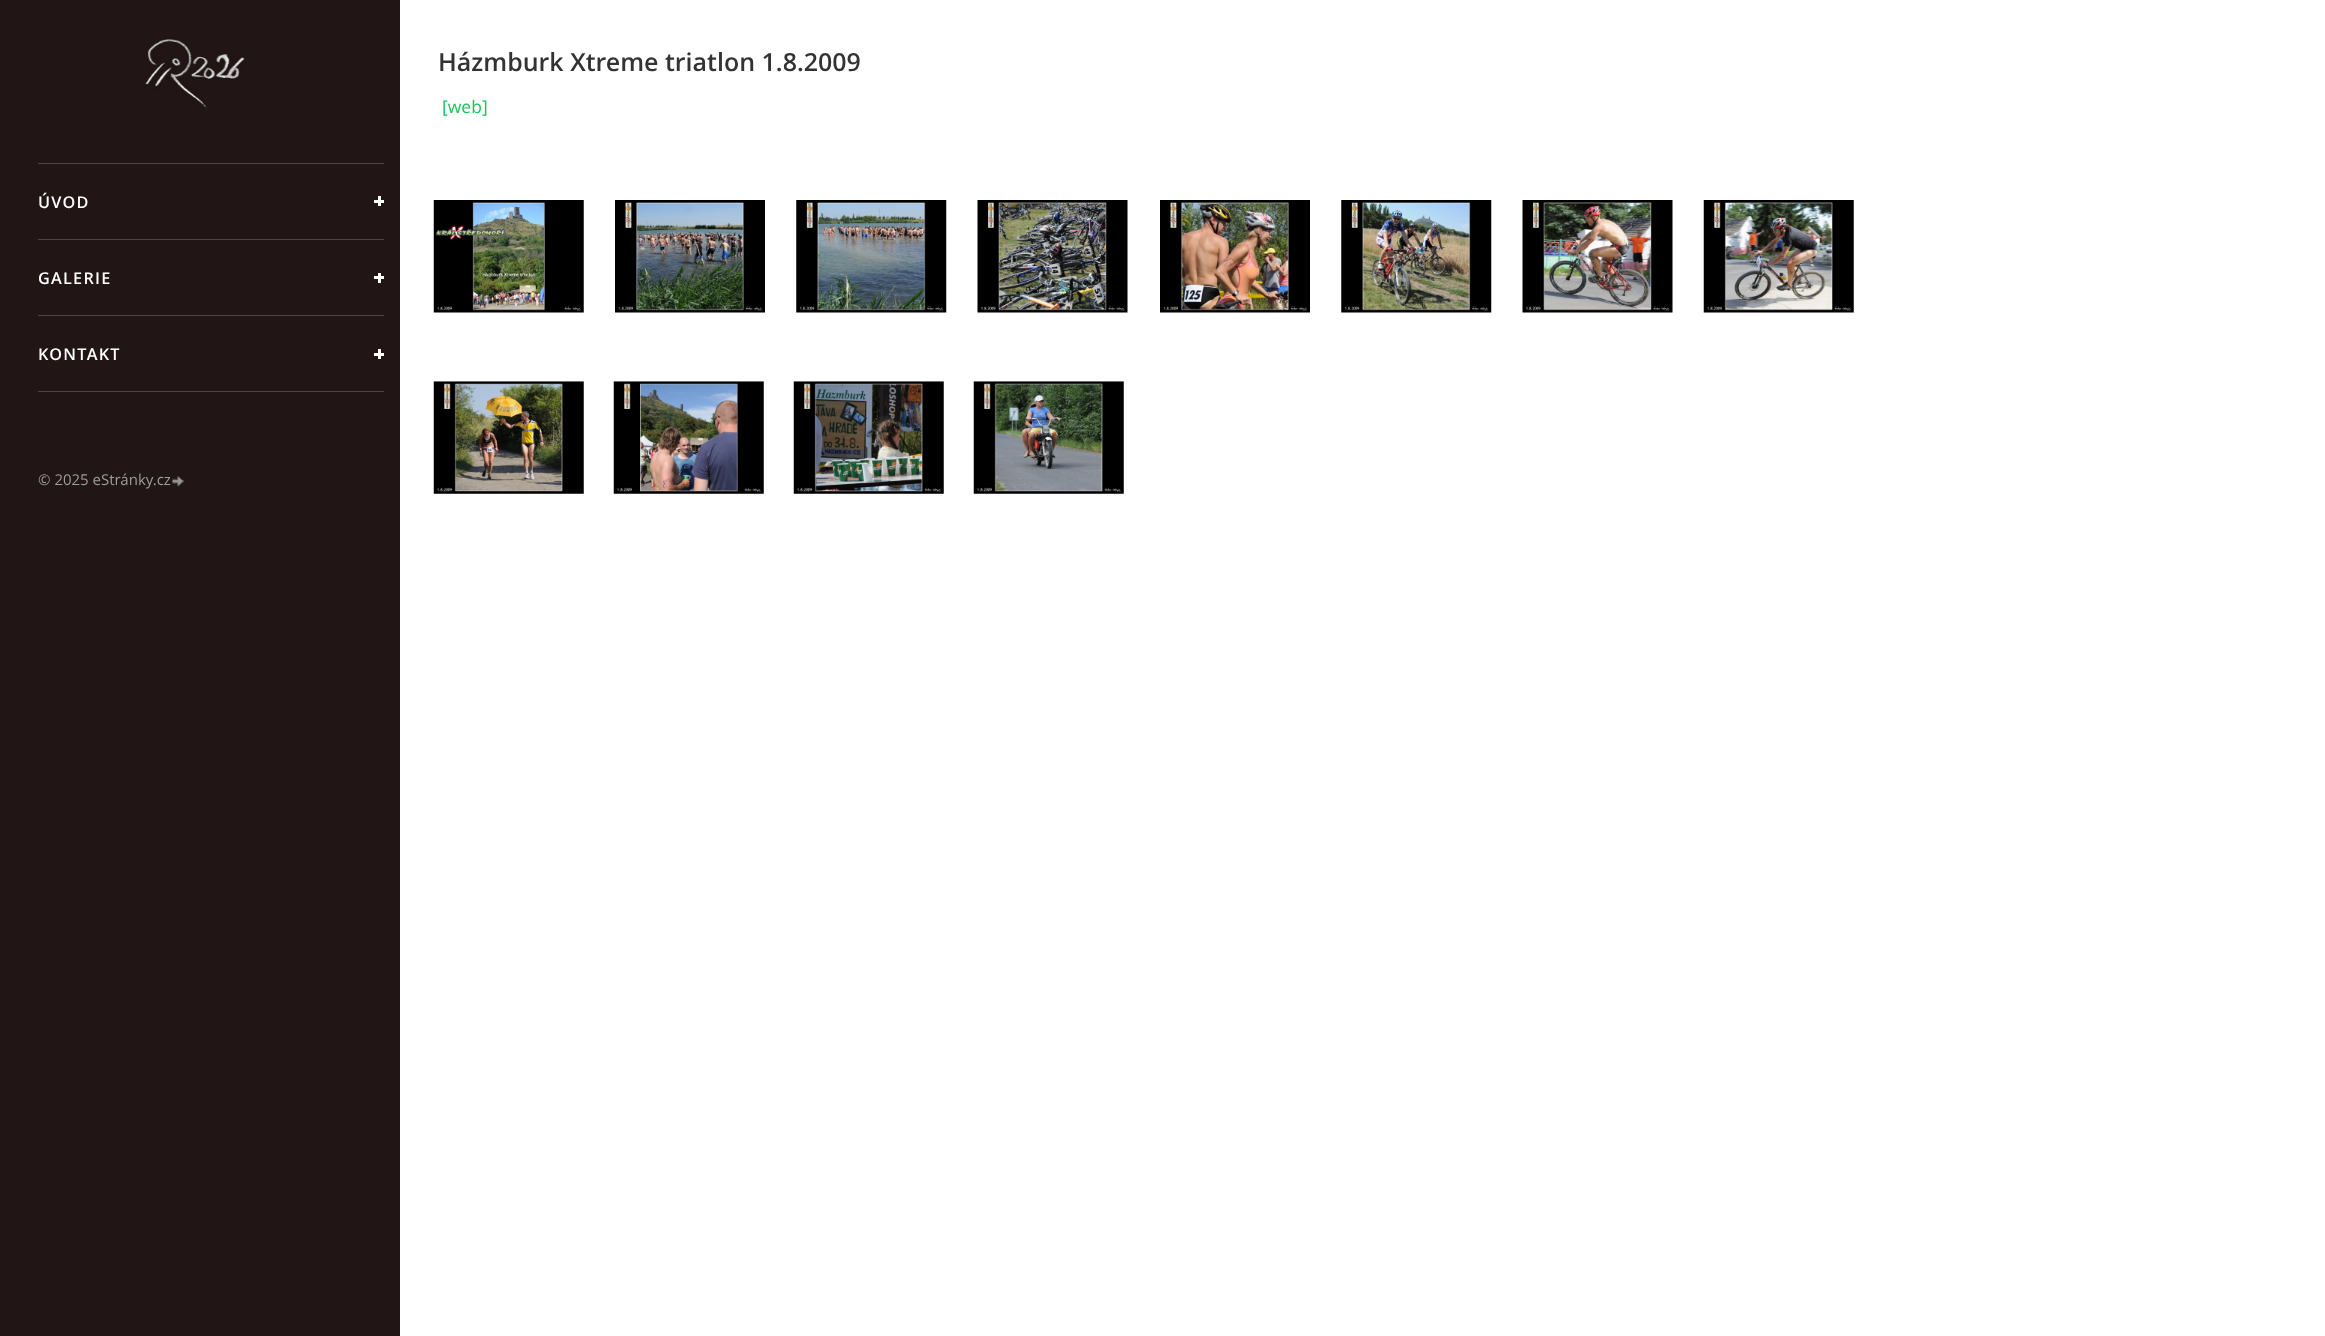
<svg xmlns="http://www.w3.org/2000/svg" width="2325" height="1336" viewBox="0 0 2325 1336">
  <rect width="100%" height="100%" fill="#ffffff"/>
  <text x="438" y="71" font-family="Open Sans" font-size="25" font-weight="600" fill="#333333">Házmburk Xtreme triatlon 1.8.2009</text>
  <text x="442" y="113" font-family="Open Sans" font-size="17.5" fill="#19c559">[web]</text>
  <image x="433" y="200" width="151" height="113" href="img1.png"/>
  <image x="615" y="200" width="150" height="113" href="img2.png"/>
  <image x="796" y="200" width="151" height="113" href="img3.png"/>
  <image x="977" y="200" width="151" height="113" href="img4.png"/>
  <image x="1160" y="200" width="150" height="113" href="img5.png"/>
  <image x="1341" y="200" width="151" height="113" href="img6.png"/>
  <image x="1522" y="200" width="151" height="113" href="img7.png"/>
  <image x="1703" y="200" width="151" height="113" href="img8.png"/>
  <image x="433" y="381" width="151" height="113" href="img9.png"/>
  <image x="613" y="381" width="151" height="113" href="img10.png"/>
  <image x="793" y="381" width="151" height="113" href="img11.png"/>
  <image x="973" y="381" width="151" height="113" href="img12.png"/>
  <rect x="0" y="0" width="400" height="1336" fill="#211515"/>
  <image x="145" y="38" width="100" height="72" href="img13.png"/>
  <rect x="38" y="163" width="346" height="1" fill="#4d4444"/>
  <text x="38" y="208" font-family="Open Sans" font-size="16.25" font-weight="600" letter-spacing="1.25" fill="#ffffff">ÚVOD</text>
  <rect x="374" y="200" width="10" height="3" fill="#ffffff"/>
  <rect x="378" y="196" width="3" height="10" fill="#ffffff"/>
  <rect x="38" y="239" width="346" height="1" fill="#4d4444"/>
  <text x="38" y="284" font-family="Open Sans" font-size="16.25" font-weight="600" letter-spacing="1.25" fill="#ffffff">GALERIE</text>
  <rect x="374" y="276" width="10" height="3" fill="#ffffff"/>
  <rect x="378" y="273" width="3" height="10" fill="#ffffff"/>
  <rect x="38" y="315" width="346" height="1" fill="#4d4444"/>
  <rect x="38" y="391" width="346" height="1" fill="#4d4444"/>
  <text x="38" y="360" font-family="Open Sans" font-size="16.25" font-weight="600" letter-spacing="1.25" fill="#ffffff">KONTAKT</text>
  <rect x="374" y="353" width="10" height="3" fill="#ffffff"/>
  <rect x="378" y="349" width="3" height="10" fill="#ffffff"/>
  <text x="38" y="485" font-family="Open Sans" font-size="15" fill="#9c9c9c">© 2025 eStránky.cz</text>
  <image x="172" y="476" width="12" height="11" href="img14.png"/>
</svg>
